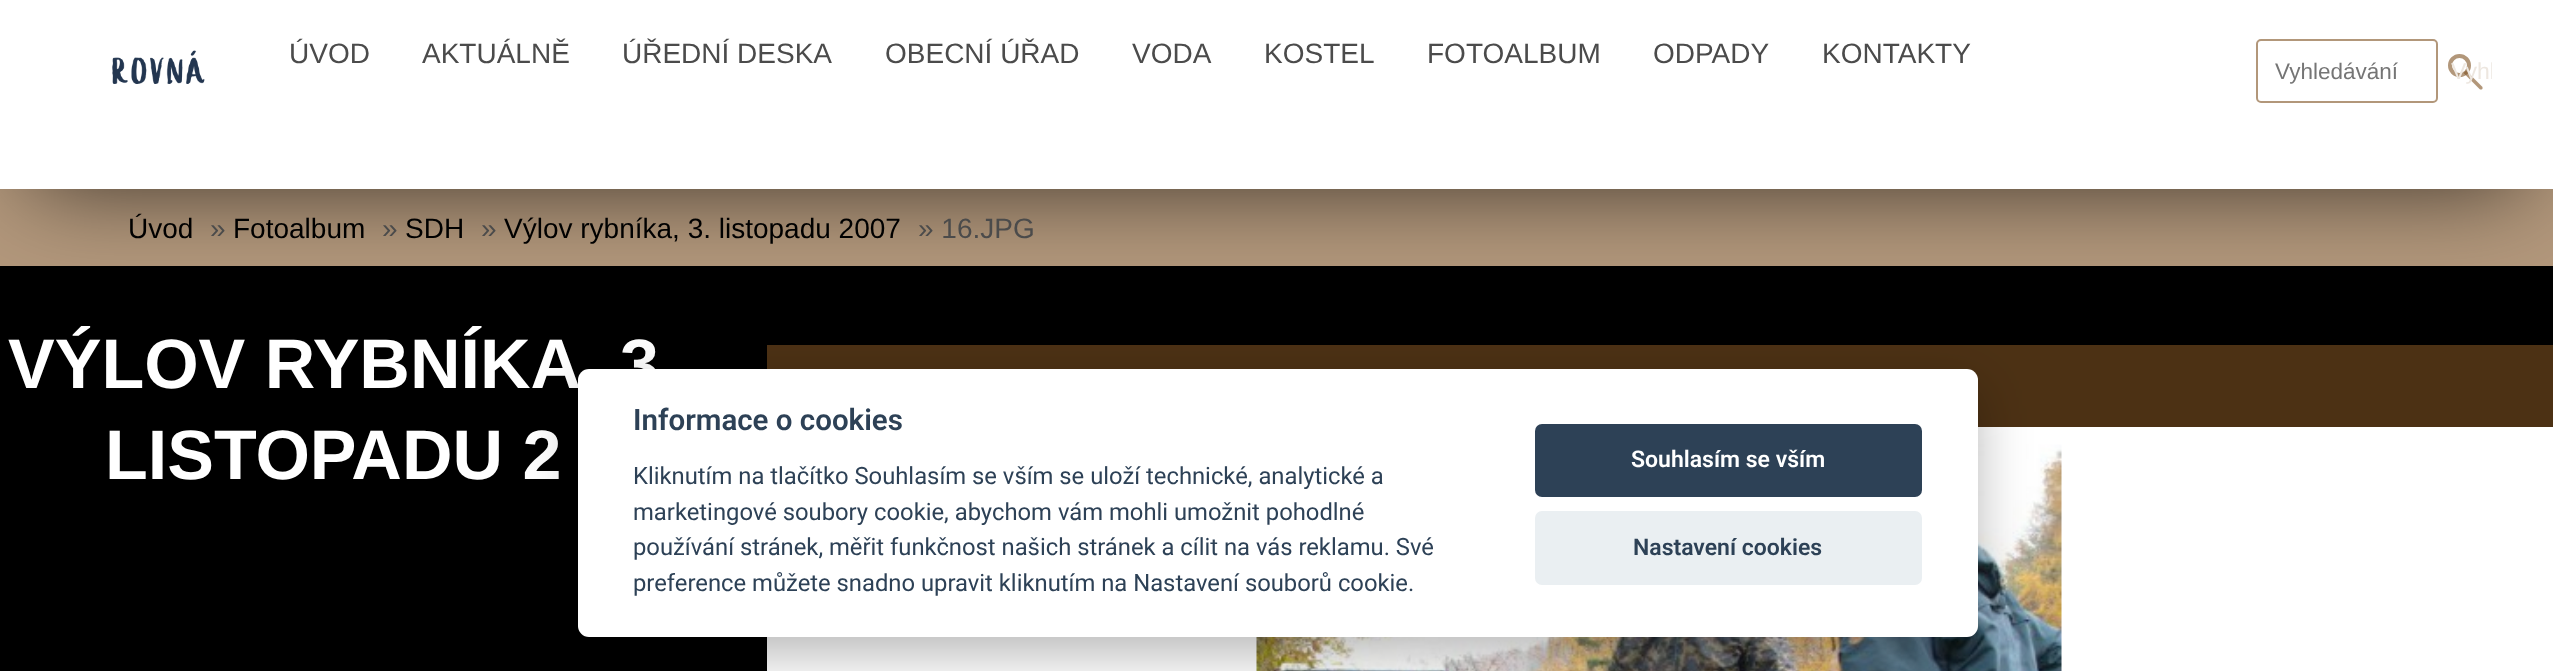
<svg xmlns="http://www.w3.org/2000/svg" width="2553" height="671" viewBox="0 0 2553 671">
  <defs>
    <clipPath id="clip1"><rect x="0" y="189" width="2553" height="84"/></clipPath>
    <filter id="blur1" x="-50%" y="-200%" width="200%" height="500%"><feGaussianBlur stdDeviation="47"/></filter>
    <clipPath id="clip2"><rect x="2440" y="46" width="52" height="52"/></clipPath>
    <filter id="blur2" x="-50%" y="-200%" width="200%" height="500%"><feGaussianBlur stdDeviation="26"/></filter>
  </defs>
  <rect width="100%" height="100%" fill="#ffffff"/>
  <rect x="0" y="189" width="2553" height="77" fill="#b2977b"/>
  <rect x="0" y="266" width="2553" height="405" fill="#000000"/>
  <g clip-path="url(#clip1)">
    <rect x="32" y="58" width="2490" height="126" fill="#000000" fill-opacity="0.7" filter="url(#blur1)"/>
  </g>
  <image x="112" y="50" width="93" height="34" href="img1.png"/>
  <text x="289" y="63" font-family="Liberation Sans" font-size="28" fill="#4b4b4b">ÚVOD</text>
  <text x="422" y="63" font-family="Liberation Sans" font-size="28" fill="#4b4b4b">AKTUÁLNĚ</text>
  <text x="622" y="63" font-family="Liberation Sans" font-size="28" fill="#4b4b4b">ÚŘEDNÍ DESKA</text>
  <text x="885" y="63" font-family="Liberation Sans" font-size="28" fill="#4b4b4b">OBECNÍ ÚŘAD</text>
  <text x="1132" y="63" font-family="Liberation Sans" font-size="28" fill="#4b4b4b">VODA</text>
  <text x="1264" y="63" font-family="Liberation Sans" font-size="28" fill="#4b4b4b">KOSTEL</text>
  <text x="1427" y="63" font-family="Liberation Sans" font-size="28" fill="#4b4b4b">FOTOALBUM</text>
  <text x="1653" y="63" font-family="Liberation Sans" font-size="28" fill="#4b4b4b">ODPADY</text>
  <text x="1822" y="63" font-family="Liberation Sans" font-size="28" fill="#4b4b4b">KONTAKTY</text>
  <rect x="2257" y="40" width="180" height="62" rx="4" fill="none" stroke="#b2977a" stroke-width="2"/>
  <text x="2275" y="79" font-family="Liberation Sans" font-size="22.5" fill="#757575">Vyhledávání</text>
  <circle cx="2459.5" cy="65.5" r="9.5" fill="none" stroke="#b2977a" stroke-width="4"/>
  <path d="M2463.5 73L2466 70.5L2482.5 87V88.5C2482.5 89.5 2480.5 90 2479.5 89Z" fill="#7f5122" fill-opacity="0.6"/>
  <g clip-path="url(#clip2)">
    <text x="2451" y="79" font-family="Liberation Sans" font-size="23" fill="#ede7e0">Vyhl</text>
  </g>
  <text x="128" y="238" font-family="Liberation Sans" font-size="28" fill="#000000">Úvod</text>
  <text x="210" y="238" font-family="Liberation Sans" font-size="28" fill="#4b4b4b">»</text>
  <text x="233" y="238" font-family="Liberation Sans" font-size="28" fill="#000000">Fotoalbum</text>
  <text x="382" y="238" font-family="Liberation Sans" font-size="28" fill="#4b4b4b">»</text>
  <text x="405" y="238" font-family="Liberation Sans" font-size="28" fill="#000000">SDH</text>
  <text x="481" y="238" font-family="Liberation Sans" font-size="28" fill="#4b4b4b">»</text>
  <text x="504" y="238" font-family="Liberation Sans" font-size="28" fill="#000000">Výlov rybníka, 3. listopadu 2007</text>
  <text x="918" y="238" font-family="Liberation Sans" font-size="28" fill="#4b4b4b">» 16.JPG</text>
  <text x="8" y="388" font-family="Liberation Sans" font-size="70" font-weight="bold" fill="#ffffff">VÝLOV RYBNÍKA, 3</text>
  <text x="105" y="479" font-family="Liberation Sans" font-size="70" font-weight="bold" fill="#ffffff">LISTOPADU 2</text>
  <rect x="767" y="345" width="1786" height="82" fill="#4c3114"/>
  <rect x="767" y="427" width="1786" height="244" fill="#ffffff"/>
  <image x="1256" y="444" width="806" height="227" href="img2.png"/>
  <rect x="578" y="387" width="1400" height="268" rx="11" fill="#020203" fill-opacity="0.28" filter="url(#blur2)"/>
  <rect x="578" y="369" width="1400" height="268" rx="11" fill="#ffffff"/>
  <text x="633" y="430" font-family="Roboto" font-size="29.5" font-weight="600" fill="#2d4156">Informace o cookies</text>
  <text x="633" y="484" font-family="Roboto" font-size="23.8" fill="#2d4156">Kliknutím na tlačítko Souhlasím se vším se uloží technické, analytické a</text>
  <text x="633" y="520" font-family="Roboto" font-size="23.8" fill="#2d4156">marketingové soubory cookie, abychom vám mohli umožnit pohodlné</text>
  <text x="633" y="555" font-family="Roboto" font-size="23.8" fill="#2d4156">používání stránek, měřit funkčnost našich stránek a cílit na vás reklamu. Své</text>
  <text x="633" y="591" font-family="Roboto" font-size="23.8" fill="#2d4156">preference můžete snadno upravit kliknutím na Nastavení souborů cookie.</text>
  <rect x="1535" y="424" width="387" height="73" rx="7" fill="#2d4156"/>
  <text x="1631" y="467" font-family="Roboto" font-size="23" font-weight="600" fill="#ffffff">Souhlasím se vším</text>
  <rect x="1535" y="511" width="387" height="74" rx="7" fill="#eaeff2"/>
  <text x="1633" y="555" font-family="Roboto" font-size="23" font-weight="600" fill="#2d4156">Nastavení cookies</text>
</svg>
